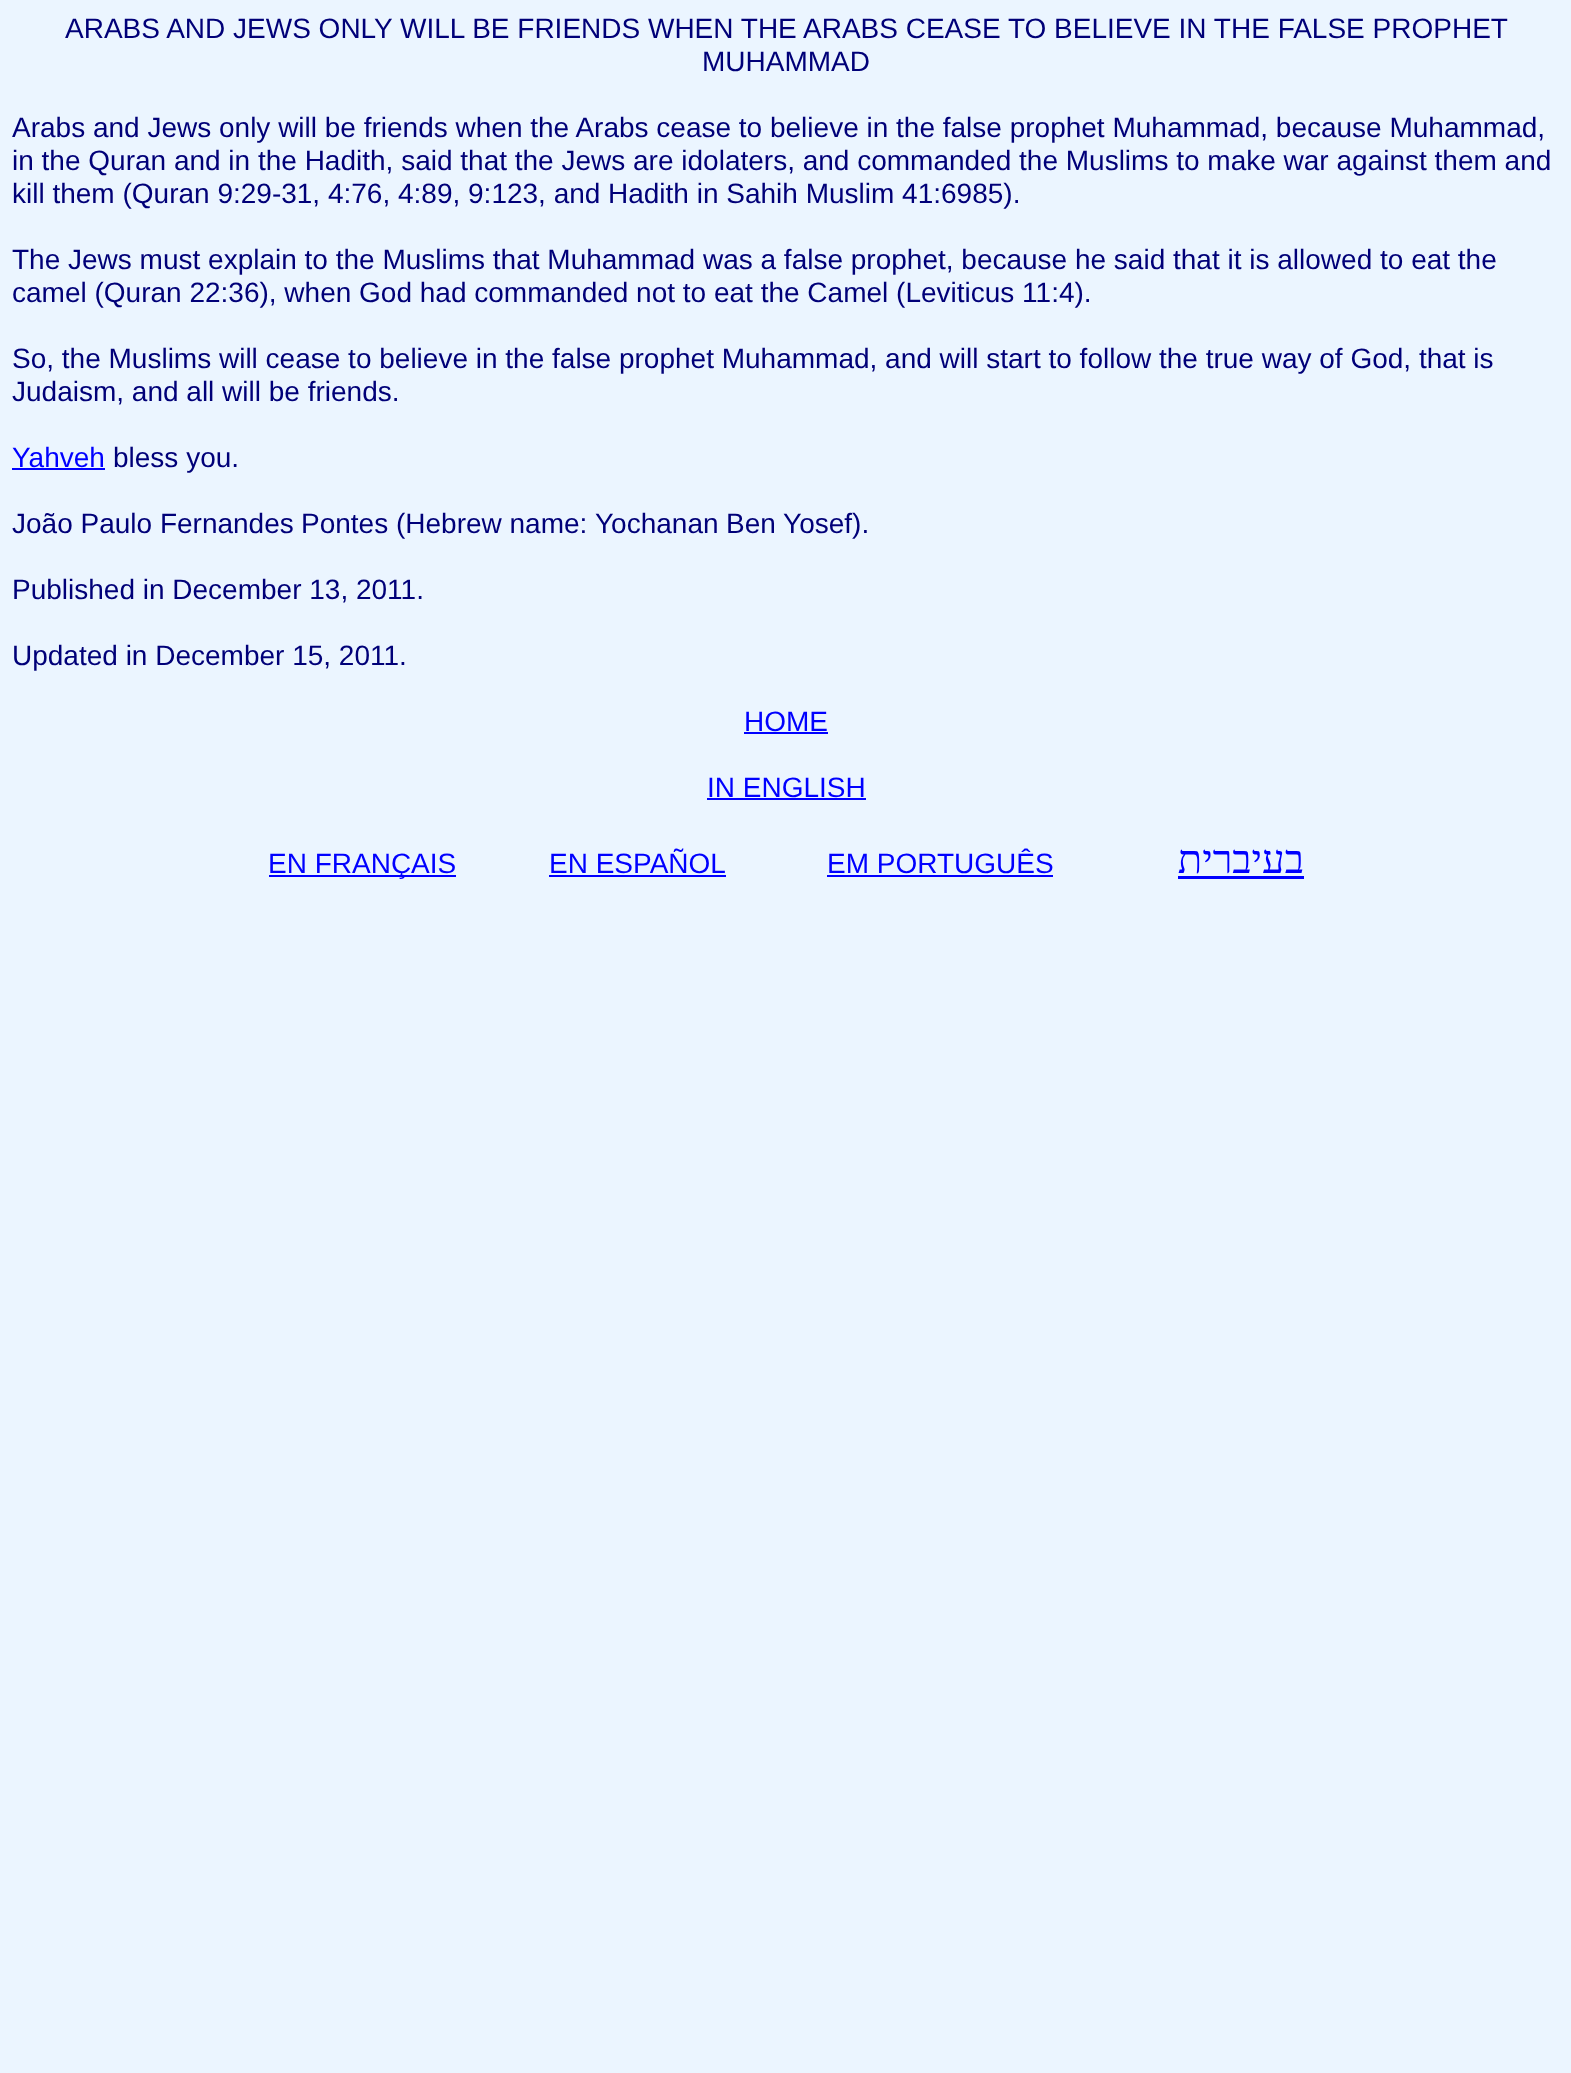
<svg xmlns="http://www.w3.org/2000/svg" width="1571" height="2073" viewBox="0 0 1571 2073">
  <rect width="100%" height="100%" fill="#ebf5ff"/>
  <text x="65" y="38" font-family="Liberation Sans" font-size="28" fill="#000078">ARABS AND JEWS ONLY WILL BE FRIENDS WHEN THE ARABS CEASE TO BELIEVE IN THE FALSE PROPHET</text>
  <text x="702" y="71" font-family="Liberation Sans" font-size="28" fill="#000078">MUHAMMAD</text>
  <text x="12" y="137" font-family="Liberation Sans" font-size="28" fill="#000078">Arabs and Jews only will be friends when the Arabs cease to believe in the false prophet Muhammad, because Muhammad,</text>
  <text x="12" y="170" font-family="Liberation Sans" font-size="28" fill="#000078">in the Quran and in the Hadith, said that the Jews are idolaters, and commanded the Muslims to make war against them and</text>
  <text x="12" y="203" font-family="Liberation Sans" font-size="28" fill="#000078">kill them (Quran 9:29-31, 4:76, 4:89, 9:123, and</text>
  <text x="608" y="203" font-family="Liberation Sans" font-size="28" fill="#000078">Hadith in Sahih Muslim 41:6985).</text>
  <text x="12" y="269" font-family="Liberation Sans" font-size="28" fill="#000078">The Jews must explain to the Muslims that Muhammad was a false prophet, because he said that it is allowed to eat the</text>
  <text x="12" y="302" font-family="Liberation Sans" font-size="28" fill="#000078">camel (Quran 22:36), when God had commanded not to eat the Camel (Leviticus 11:4).</text>
  <text x="12" y="368" font-family="Liberation Sans" font-size="28" fill="#000078">So, the Muslims will cease to believe in the false prophet Muhammad, and will start to follow the true way of God, that is</text>
  <text x="12" y="401" font-family="Liberation Sans" font-size="28" fill="#000078">Judaism, and all will be friends.</text>
  <text x="12" y="467" font-family="Liberation Sans" font-size="28" fill="#0000ff">Yahveh</text>
  <rect x="12" y="468" width="93" height="2" fill="#0000ff"/>
  <text x="113" y="467" font-family="Liberation Sans" font-size="28" fill="#000078">bless you.</text>
  <text x="12" y="533" font-family="Liberation Sans" font-size="28" fill="#000078">João Paulo Fernandes</text>
  <text x="301" y="533" font-family="Liberation Sans" font-size="28" fill="#000078">Pontes (Hebrew name:</text>
  <text x="595" y="533" font-family="Liberation Sans" font-size="28" fill="#000078">Yochanan</text>
  <text x="726" y="533" font-family="Liberation Sans" font-size="28" fill="#000078">Ben Yosef).</text>
  <text x="12" y="599" font-family="Liberation Sans" font-size="28" fill="#000078">Published in December 13, 2011.</text>
  <text x="12" y="665" font-family="Liberation Sans" font-size="28" fill="#000078">Updated in December 15, 2011.</text>
  <text x="744" y="731" font-family="Liberation Sans" font-size="28" fill="#0000ff">HOME</text>
  <rect x="744" y="732" width="84" height="2" fill="#0000ff"/>
  <text x="707" y="797" font-family="Liberation Sans" font-size="28" fill="#0000ff">IN ENGLISH</text>
  <rect x="707" y="798" width="159" height="2" fill="#0000ff"/>
  <rect x="269" y="875" width="187" height="2" fill="#0000ff"/>
  <text x="268" y="873" font-family="Liberation Sans" font-size="28" fill="#0000ff">EN FRANÇAIS</text>
  <text x="549" y="873" font-family="Liberation Sans" font-size="28" fill="#0000ff">EN ESPAÑOL</text>
  <rect x="549" y="875" width="177" height="2" fill="#0000ff"/>
  <text x="827" y="873" font-family="Liberation Sans" font-size="28" fill="#0000ff">EM PORTUGUÊS</text>
  <rect x="827" y="875" width="226" height="2" fill="#0000ff"/>
  <text x="1304" y="873" font-family="Liberation Serif" font-size="40" direction="rtl" fill="#0000ff">בעיברית</text>
  <rect x="1178" y="876" width="126" height="3" fill="#0000ff"/>
</svg>
